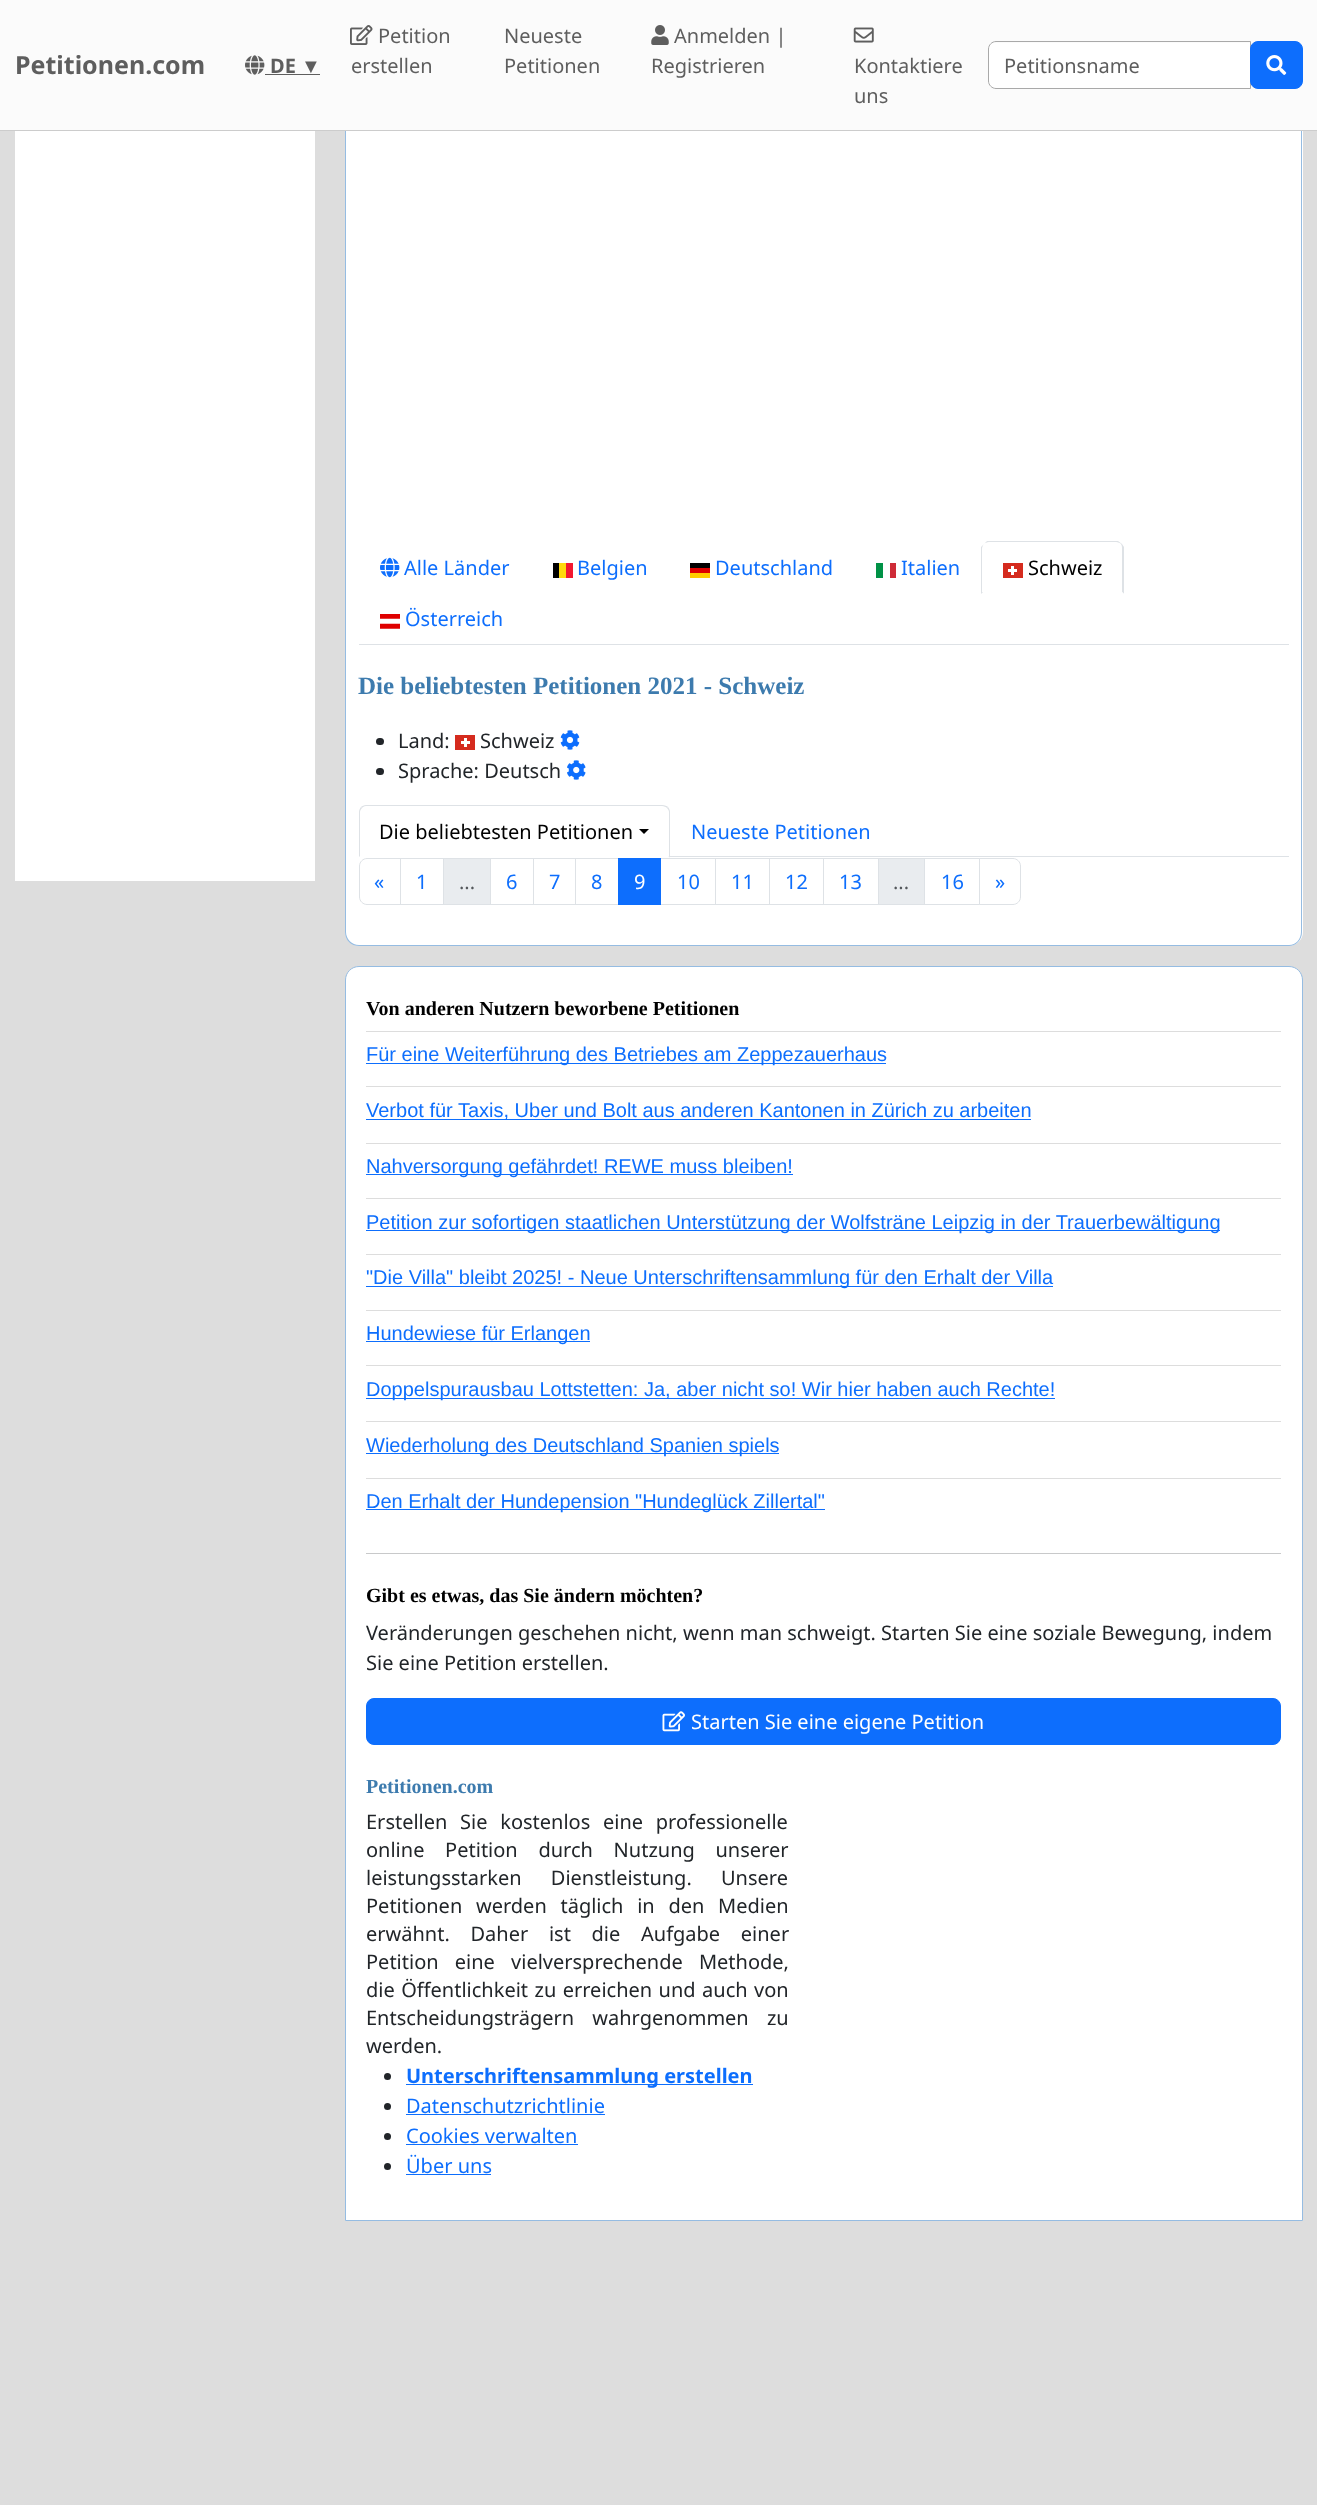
<svg xmlns="http://www.w3.org/2000/svg" width="1317" height="2505" viewBox="0 0 1317 2505">
  <rect width="100%" height="100%" fill="#dddddd"/>
  <rect x="0" y="0" width="1317" height="130" fill="#fbfbfb"/>
  <rect x="0" y="130" width="1317" height="1" fill="#cccccc"/>
  <text x="15" y="74" font-family="Noto Sans" font-size="25" font-weight="bold" fill="#5e5e5e">Petitionen.com</text>
  <image x="245" y="55" width="20" height="20" href="img1.png"/>
  <text x="270" y="73" font-family="Noto Sans" font-size="20" font-weight="bold" fill="#5e5e5e">DE</text>
  <rect x="265" y="74" width="55" height="1" fill="#5e5e5e"/>
  <text x="301" y="73" font-family="Liberation Sans" font-size="20" fill="#5e5e5e">▼</text>
  <image x="350" y="25" width="23" height="20" href="img2.png"/>
  <text x="378" y="43" font-family="Noto Sans" font-size="20" fill="#5e5e5e">Petition</text>
  <text x="351" y="73" font-family="Noto Sans" font-size="20" fill="#5e5e5e">erstellen</text>
  <text x="504" y="43" font-family="Noto Sans" font-size="20" fill="#5e5e5e">Neueste</text>
  <text x="504" y="73" font-family="Noto Sans" font-size="20" fill="#5e5e5e">Petitionen</text>
  <image x="651" y="25" width="18" height="20" href="img3.png"/>
  <text x="674" y="43" font-family="Noto Sans" font-size="20" fill="#5e5e5e">Anmelden |</text>
  <text x="651" y="73" font-family="Noto Sans" font-size="20" fill="#5e5e5e">Registrieren</text>
  <image x="853" y="27" width="21" height="16" href="img4.png"/>
  <text x="854" y="73" font-family="Noto Sans" font-size="20" fill="#5e5e5e">Kontaktiere</text>
  <text x="854" y="103" font-family="Noto Sans" font-size="20" fill="#5e5e5e">uns</text>
  <path d="M995 43H1250V88H995C991.5 88 989 85.5 989 82V49C989 45.5 991.5 43 995 43Z" fill="#ffffff"/>
  <path d="M996 41.5H1250.5V88.5H996C992 88.5 988.5 85 988.5 81V49C988.5 45 992 41.5 996 41.5Z" fill="none" stroke="#a9a9a9"/>
  <text x="1004" y="73" font-family="Noto Sans" font-size="20" fill="#5e5e5e">Petitionsname</text>
  <rect x="1250.5" y="41.5" width="52" height="47" rx="7.5" fill="#0d6efd" stroke="#0d6efd"/>
  <image x="1266" y="55" width="21" height="20" href="img5.png"/>
  <rect x="15" y="131" width="300" height="750" fill="#ffffff"/>
  <path d="M345 131H1303V932C1303 939.5 1296.5 946 1289 946H359C351.5 946 345 939.5 345 932Z" fill="#ffffff"/>
  <path d="M345 131H1302V932C1302 940 1296 946 1289 946H359C351 946 345 940 345 932ZM346 131H1301V932C1301 939 1296 945 1289 945H359C352 945 346 939 346 932Z" fill="#95bce2" fill-rule="evenodd"/>
  <rect x="359" y="644" width="930" height="1" fill="#dee2e6"/>
  <image x="380" y="557" width="20" height="21" href="img6.png"/>
  <text x="404" y="575" font-family="Noto Sans" font-size="20" fill="#0d6efd">Alle Länder</text>
  <text x="577" y="575" font-family="Noto Sans" font-size="20" fill="#0d6efd">Belgien</text>
  <rect x="553" y="563" width="6" height="15" fill="#000000"/>
  <rect x="559" y="563" width="7" height="15" fill="#ffd90c"/>
  <rect x="566" y="563" width="7" height="15" fill="#f31830"/>
  <text x="715" y="575" font-family="Noto Sans" font-size="20" fill="#0d6efd">Deutschland</text>
  <rect x="690" y="573" width="20" height="5" fill="#ffce00"/>
  <rect x="690" y="563" width="20" height="5" fill="#000000"/>
  <rect x="690" y="568" width="20" height="5" fill="#dd0000"/>
  <text x="901" y="575" font-family="Noto Sans" font-size="20" fill="#0d6efd">Italien</text>
  <rect x="876" y="563" width="7" height="15" fill="#009246"/>
  <rect x="890" y="563" width="6" height="15" fill="#ce2b37"/>
  <path d="M989 542C987 542 985 543 984 544L987 541H1118L1122 544H1121C1120 543 1118 542 1116 542Z" fill="#dee2e6"/>
  <path d="M1122 544L1124 547V594L1122 592V549C1122 547 1122 546 1121 544Z" fill="#dee2e6"/>
  <path d="M1124 594L1122 592H983L981 594Z" fill="#ffffff"/>
  <path d="M981 594V547L984 544C983 545 982 547 982 549V592H983Z" fill="#dee2e6"/>
  <text x="1028" y="575" font-family="Noto Sans" font-size="20" fill="#000000">Schweiz</text>
  <rect x="1003" y="563" width="20" height="15" fill="#d52b1e"/>
  <rect x="1008" y="569" width="9" height="3" fill="#ffffff"/>
  <rect x="1011" y="566" width="3" height="9" fill="#ffffff"/>
  <image x="380" y="614" width="20" height="15" href="img7.png"/>
  <text x="405" y="626" font-family="Noto Sans" font-size="20" fill="#0d6efd">Österreich</text>
  <text x="358" y="694" font-family="Liberation Serif" font-size="25" font-weight="bold" fill="#3d7bae">Die beliebtesten Petitionen 2021 - Schweiz</text>
  <rect x="376" y="738" width="8" height="7" rx="3.5" fill="#212529"/>
  <text x="398" y="748" font-family="Noto Sans" font-size="20" fill="#212529">Land:</text>
  <rect x="455" y="735" width="20" height="15" fill="#d52b1e"/>
  <text x="480" y="748" font-family="Noto Sans" font-size="20" fill="#212529">Schweiz</text>
  <image x="560" y="730" width="20" height="20" href="img8.png"/>
  <rect x="461" y="741" width="9" height="3" fill="#ffffff"/>
  <rect x="464" y="738" width="3" height="9" fill="#ffffff"/>
  <rect x="376" y="768" width="8" height="7" rx="3.5" fill="#212529"/>
  <text x="398" y="778" font-family="Noto Sans" font-size="20" fill="#212529">Sprache: Deutsch</text>
  <image x="567" y="760" width="19" height="20" href="img9.png"/>
  <rect x="670" y="856" width="619" height="1" fill="#dee2e6"/>
  <path d="M366 805C364 805 362 806 361 807L362 808C363 807 364 806 366 806H662C664 806 666 807 667 808L668 807C667 806 665 805 662 805Z" fill="#dee2e6"/>
  <path d="M670 858V812C670 810 669 808 668 807L667 808C668 809 669 811 669 812V856H668Z" fill="#dee2e6"/>
  <path d="M670 858H359L360 856H668Z" fill="#ffffff"/>
  <path d="M361 807C360 808 359 810 359 812V857L360 856V812C360 811 361 809 362 808Z" fill="#dee2e6"/>
  <text x="379" y="839" font-family="Noto Sans" font-size="20" fill="#000000">Die beliebtesten Petitionen</text>
  <path d="M639 829H649L644 834Z" fill="#000000"/>
  <text x="691" y="839" font-family="Noto Sans" font-size="20" fill="#0d6efd">Neueste Petitionen</text>
  <path d="M367 858.5H400.5V904.5H367C363 904.5 359.5 901 359.5 897V866C359.5 862 363 858.5 367 858.5Z" fill="none" stroke="#dee2e6"/>
  <text x="374" y="889" font-family="Noto Sans" font-size="20" fill="#0d6efd">«</text>
  <rect x="400.5" y="858.5" width="43" height="46" fill="none" stroke="#dee2e6"/>
  <text x="416" y="889" font-family="Noto Sans" font-size="20" fill="#0d6efd">1</text>
  <rect x="443.5" y="858.5" width="47" height="46" fill="#e9ecef" stroke="#dee2e6"/>
  <text x="459" y="889" font-family="Noto Sans" font-size="20" fill="#53575b">...</text>
  <rect x="490.5" y="858.5" width="43" height="46" fill="none" stroke="#dee2e6"/>
  <text x="506" y="889" font-family="Noto Sans" font-size="20" fill="#0d6efd">6</text>
  <rect x="533.5" y="858.5" width="42" height="46" fill="none" stroke="#dee2e6"/>
  <text x="549" y="889" font-family="Noto Sans" font-size="20" fill="#0d6efd">7</text>
  <rect x="575.5" y="858.5" width="43" height="46" fill="none" stroke="#dee2e6"/>
  <text x="591" y="889" font-family="Noto Sans" font-size="20" fill="#0d6efd">8</text>
  <rect x="660.5" y="858.5" width="55" height="46" fill="none" stroke="#dee2e6"/>
  <rect x="618" y="858" width="43" height="47" fill="#0d6efd"/>
  <text x="634" y="889" font-family="Noto Sans" font-size="20" fill="#ffffff">9</text>
  <text x="677" y="889" font-family="Noto Sans" font-size="20" fill="#0d6efd">10</text>
  <rect x="715.5" y="858.5" width="54" height="46" fill="none" stroke="#dee2e6"/>
  <text x="731" y="889" font-family="Noto Sans" font-size="20" fill="#0d6efd">11</text>
  <rect x="769.5" y="858.5" width="54" height="46" fill="none" stroke="#dee2e6"/>
  <text x="785" y="889" font-family="Noto Sans" font-size="20" fill="#0d6efd">12</text>
  <rect x="823.5" y="858.5" width="55" height="46" fill="none" stroke="#dee2e6"/>
  <text x="839" y="889" font-family="Noto Sans" font-size="20" fill="#0d6efd">13</text>
  <rect x="878.5" y="858.5" width="46" height="46" fill="#e9ecef" stroke="#dee2e6"/>
  <text x="893" y="889" font-family="Noto Sans" font-size="20" fill="#53575b">...</text>
  <rect x="924.5" y="858.5" width="55" height="46" fill="none" stroke="#dee2e6"/>
  <text x="941" y="889" font-family="Noto Sans" font-size="20" fill="#0d6efd">16</text>
  <path d="M979.5 858.5H1013C1017 858.5 1020.5 862 1020.5 866V897C1020.5 901 1017 904.5 1013 904.5H979.5Z" fill="#ffffff" stroke="#dee2e6"/>
  <text x="995" y="889" font-family="Noto Sans" font-size="20" fill="#0d6efd">»</text>
  <path d="M359 966.5H1289C1296.5 966.5 1302.5 972.5 1302.5 980V2220.5H345.5V980C345.5 972.5 351.5 966.5 359 966.5Z" fill="#ffffff" stroke="#95bce2"/>
  <text x="366" y="1015" font-family="Liberation Serif" font-size="20" font-weight="bold" fill="#000000">Von anderen Nutzern beworbene Petitionen</text>
  <rect x="366" y="1031" width="915" height="1" fill="#dddddd"/>
  <rect x="366" y="1063" width="520" height="1" fill="#0d6efd"/>
  <text x="366" y="1061" font-family="Liberation Sans" font-size="20" fill="#0d6efd">Für eine Weiterführung des Betriebes am Zeppezauerhaus</text>
  <rect x="366" y="1086" width="915" height="1" fill="#dddddd"/>
  <rect x="366" y="1119" width="665" height="1" fill="#0d6efd"/>
  <text x="366" y="1117" font-family="Liberation Sans" font-size="20" fill="#0d6efd">Verbot für Taxis, Uber und Bolt aus anderen Kantonen in Zürich zu arbeiten</text>
  <rect x="366" y="1143" width="915" height="1" fill="#dddddd"/>
  <rect x="366" y="1174" width="427" height="1" fill="#0d6efd"/>
  <text x="366" y="1173" font-family="Liberation Sans" font-size="20" fill="#0d6efd">Nahversorgung gefährdet! REWE muss bleiben!</text>
  <rect x="366" y="1198" width="915" height="1" fill="#dddddd"/>
  <rect x="366" y="1230" width="854" height="1" fill="#0d6efd"/>
  <text x="366" y="1229" font-family="Liberation Sans" font-size="20" fill="#0d6efd">Petition zur sofortigen staatlichen Unterstützung der Wolfsträne Leipzig in der Trauerbewältigung</text>
  <rect x="366" y="1254" width="915" height="1" fill="#dddddd"/>
  <rect x="366" y="1286" width="687" height="1" fill="#0d6efd"/>
  <text x="366" y="1284" font-family="Liberation Sans" font-size="20" fill="#0d6efd">"Die Villa" bleibt 2025! - Neue Unterschriftensammlung für den Erhalt der Villa</text>
  <rect x="366" y="1310" width="915" height="1" fill="#dddddd"/>
  <rect x="366" y="1341" width="224" height="1" fill="#0d6efd"/>
  <text x="366" y="1340" font-family="Liberation Sans" font-size="20" fill="#0d6efd">Hundewiese für Erlangen</text>
  <rect x="366" y="1365" width="915" height="1" fill="#dddddd"/>
  <rect x="366" y="1398" width="689" height="1" fill="#0d6efd"/>
  <text x="366" y="1396" font-family="Liberation Sans" font-size="20" fill="#0d6efd">Doppelspurausbau Lottstetten: Ja, aber nicht so! Wir hier haben auch Rechte!</text>
  <rect x="366" y="1421" width="915" height="1" fill="#dddddd"/>
  <rect x="366" y="1453" width="413" height="1" fill="#0d6efd"/>
  <text x="366" y="1452" font-family="Liberation Sans" font-size="20" fill="#0d6efd">Wiederholung des Deutschland Spanien spiels</text>
  <rect x="366" y="1478" width="915" height="1" fill="#dddddd"/>
  <rect x="366" y="1509" width="459" height="1" fill="#0d6efd"/>
  <text x="366" y="1508" font-family="Liberation Sans" font-size="20" fill="#0d6efd">Den Erhalt der Hundepension "Hundeglück Zillertal"</text>
  <rect x="366" y="1553" width="915" height="1" fill="#c8c9ca"/>
  <text x="366" y="1602" font-family="Liberation Serif" font-size="20" font-weight="bold" fill="#000000">Gibt es etwas, das Sie ändern möchten?</text>
  <text x="366" y="1640" font-family="Noto Sans" font-size="20" fill="#212529">Veränderungen geschehen nicht, wenn man schweigt. Starten Sie eine soziale Bewegung, indem</text>
  <text x="366" y="1670" font-family="Noto Sans" font-size="20" fill="#212529">Sie eine Petition erstellen.</text>
  <rect x="366.5" y="1698.5" width="914" height="46" rx="7.5" fill="#0d6efd" stroke="#0d6efd"/>
  <image x="662" y="1711" width="23" height="21" href="img10.png"/>
  <text x="691" y="1729" font-family="Noto Sans" font-size="20" fill="#ffffff">Starten Sie eine eigene Petition</text>
  <text x="366" y="1793" font-family="Liberation Serif" font-size="20" font-weight="bold" fill="#3d7bae">Petitionen.com</text>
  <text x="366" y="1829" word-spacing="7.5" font-family="Noto Sans" font-size="20" fill="#212529">Erstellen Sie kostenlos eine professionelle</text>
  <text x="366" y="1857" word-spacing="15.5" font-family="Noto Sans" font-size="20" fill="#212529">online Petition durch Nutzung unserer</text>
  <text x="366" y="1885" word-spacing="24" font-family="Noto Sans" font-size="20" fill="#212529">leistungsstarken Dienstleistung. Unsere</text>
  <text x="366" y="1913" word-spacing="8.5" font-family="Noto Sans" font-size="20" fill="#212529">Petitionen werden täglich in den Medien</text>
  <text x="366" y="1941" word-spacing="15.5" font-family="Noto Sans" font-size="20" fill="#212529">erwähnt. Daher ist die Aufgabe einer</text>
  <text x="366" y="1969" word-spacing="11" font-family="Noto Sans" font-size="20" fill="#212529">Petition eine vielversprechende Methode,</text>
  <text x="366" y="1997" word-spacing="1.25" font-family="Noto Sans" font-size="20" fill="#212529">die Öffentlichkeit zu erreichen und auch von</text>
  <text x="366" y="2025" word-spacing="13" font-family="Noto Sans" font-size="20" fill="#212529">Entscheidungsträgern wahrgenommen zu</text>
  <text x="366" y="2053" font-family="Noto Sans" font-size="20" fill="#212529">werden.</text>
  <circle cx="387.5" cy="2076.5" r="3.5" fill="#212529"/>
  <rect x="406" y="2084" width="347" height="1" fill="#0d6efd"/>
  <text x="406" y="2083" font-family="Noto Sans" font-size="20" font-weight="bold" fill="#0d6efd">Unterschriftensammlung erstellen</text>
  <circle cx="387.5" cy="2106.5" r="3.5" fill="#212529"/>
  <text x="406" y="2113" font-family="Noto Sans" font-size="20" fill="#0d6efd">Datenschutzrichtlinie</text>
  <rect x="406" y="2114" width="199" height="1" fill="#0d6efd"/>
  <circle cx="387.5" cy="2136.5" r="3.5" fill="#212529"/>
  <text x="406" y="2143" font-family="Noto Sans" font-size="20" fill="#0d6efd">Cookies verwalten</text>
  <rect x="406" y="2144" width="172" height="1" fill="#0d6efd"/>
  <circle cx="387.5" cy="2166.5" r="3.5" fill="#212529"/>
  <text x="406" y="2173" font-family="Noto Sans" font-size="20" fill="#0d6efd">Über uns</text>
  <rect x="406" y="2174" width="85" height="1" fill="#0d6efd"/>
</svg>
